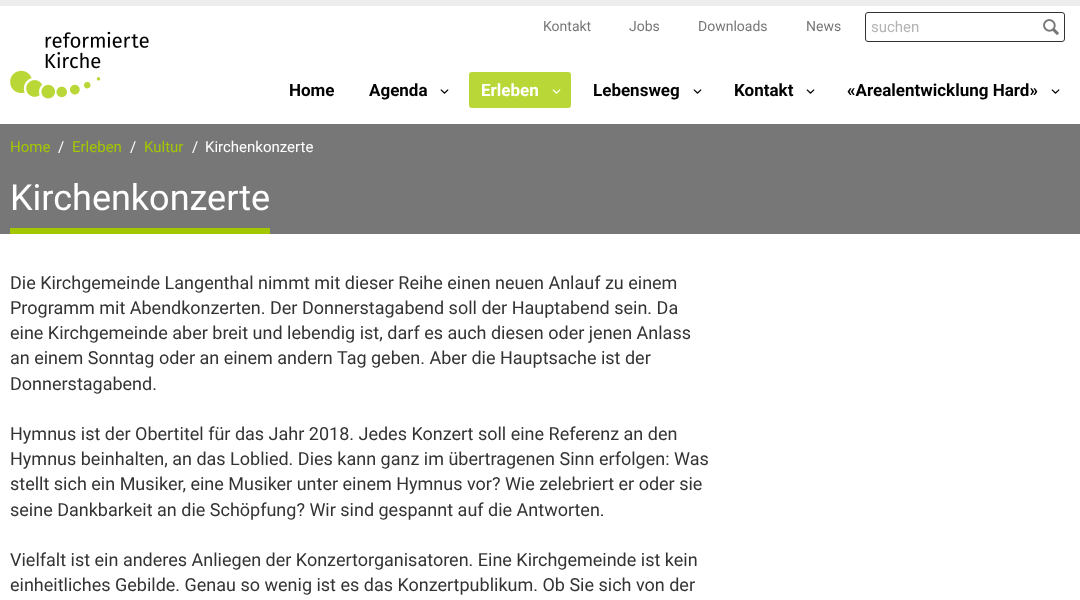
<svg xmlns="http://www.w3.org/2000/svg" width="1080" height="600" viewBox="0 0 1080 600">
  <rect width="100%" height="100%" fill="#ffffff"/>
  <rect x="0" y="0" width="1080" height="6" fill="#ededed"/>
  <image x="10" y="31" width="139" height="68" href="img1.png"/>
  <text x="543" y="31" font-family="Roboto" font-size="14" fill="#777777">Kontakt</text>
  <text x="629" y="31" font-family="Roboto" font-size="14" fill="#777777">Jobs</text>
  <text x="698" y="31" font-family="Roboto" font-size="14" fill="#777777">Downloads</text>
  <text x="806" y="31" font-family="Roboto" font-size="14" fill="#777777">News</text>
  <rect x="865.5" y="12.5" width="199" height="29" rx="2.5" fill="none" stroke="#333333"/>
  <text x="871" y="32" font-family="Roboto" font-size="15" fill="#b3b3b3">suchen</text>
  <image x="1043" y="19" width="16" height="16" href="img2.png"/>
  <text x="289" y="96" font-family="Roboto" font-size="17" font-weight="bold" fill="#000000">Home</text>
  <text x="369" y="96" font-family="Roboto" font-size="17" font-weight="bold" fill="#000000">Agenda</text>
  <image x="440" y="89" width="9" height="5" href="img3.png"/>
  <rect x="469" y="72" width="102" height="36" rx="3" fill="#b9d737"/>
  <text x="481" y="96" font-family="Roboto" font-size="17" font-weight="bold" fill="#ffffff">Erleben</text>
  <image x="552" y="89" width="9" height="5" href="img4.png"/>
  <text x="593" y="96" font-family="Roboto" font-size="17" font-weight="bold" fill="#000000">Lebensweg</text>
  <image x="693" y="89" width="9" height="5" href="img3.png"/>
  <text x="734" y="96" font-family="Roboto" font-size="17" font-weight="bold" fill="#000000">Kontakt</text>
  <image x="806" y="89" width="9" height="5" href="img3.png"/>
  <text x="847" y="96" font-family="Roboto" font-size="17" font-weight="bold" fill="#000000">«Arealentwicklung Hard»</text>
  <image x="1051" y="89" width="9" height="5" href="img3.png"/>
  <rect x="0" y="124" width="1080" height="110" fill="#777777"/>
  <text x="10" y="152" font-family="Roboto" font-size="15" fill="#a2c700">Home</text>
  <text x="58" y="152" font-family="Roboto" font-size="15" fill="#ffffff">/</text>
  <text x="72" y="152" font-family="Roboto" font-size="15" fill="#a2c700">Erleben</text>
  <text x="130" y="152" font-family="Roboto" font-size="15" fill="#ffffff">/</text>
  <text x="144" y="152" font-family="Roboto" font-size="15" fill="#a2c700">Kultur</text>
  <text x="192" y="152" font-family="Roboto" font-size="15" fill="#ffffff">/</text>
  <text x="205" y="152" font-family="Roboto" font-size="15" fill="#ffffff">Kirchenkonzerte</text>
  <rect x="10" y="228" width="260" height="6" fill="#a2c700"/>
  <text x="10" y="210" font-family="Roboto" font-size="36" fill="#ffffff">Kirchenkonzerte</text>
  <text x="10" y="289" font-family="Roboto" font-size="18" fill="#333333">Die Kirchgemeinde Langenthal nimmt mit dieser Reihe einen neuen Anlauf zu einem</text>
  <text x="10" y="314" font-family="Roboto" font-size="18" fill="#333333">Programm mit Abendkonzerten. Der Donnerstagabend soll der Hauptabend sein. Da</text>
  <text x="10" y="339" font-family="Roboto" font-size="18" fill="#333333">eine Kirchgemeinde aber breit und lebendig ist, darf es auch diesen oder jenen Anlass</text>
  <text x="10" y="364" font-family="Roboto" font-size="18" fill="#333333">an einem Sonntag oder an einem andern Tag geben. Aber die Hauptsache ist der</text>
  <text x="10" y="390" font-family="Roboto" font-size="18" fill="#333333">Donnerstagabend.</text>
  <text x="10" y="440" font-family="Roboto" font-size="18" fill="#333333">Hymnus ist der Obertitel für das Jahr 2018. Jedes Konzert soll eine Referenz an den</text>
  <text x="10" y="465" font-family="Roboto" font-size="18" fill="#333333">Hymnus beinhalten, an das Loblied. Dies kann ganz im übertragenen Sinn erfolgen: Was</text>
  <text x="10" y="490" font-family="Roboto" font-size="18" fill="#333333">stellt sich ein Musiker, eine Musiker unter einem Hymnus vor? Wie zelebriert er oder sie</text>
  <text x="10" y="516" font-family="Roboto" font-size="18" fill="#333333">seine Dankbarkeit an die Schöpfung? Wir sind gespannt auf die Antworten.</text>
  <text x="10" y="566" font-family="Roboto" font-size="18" fill="#333333">Vielfalt ist ein anderes Anliegen der Konzertorganisatoren. Eine Kirchgemeinde ist kein</text>
  <text x="10" y="591" font-family="Roboto" font-size="18" fill="#333333">einheitliches Gebilde. Genau so wenig ist es das Konzertpublikum. Ob Sie sich von der</text>
</svg>
